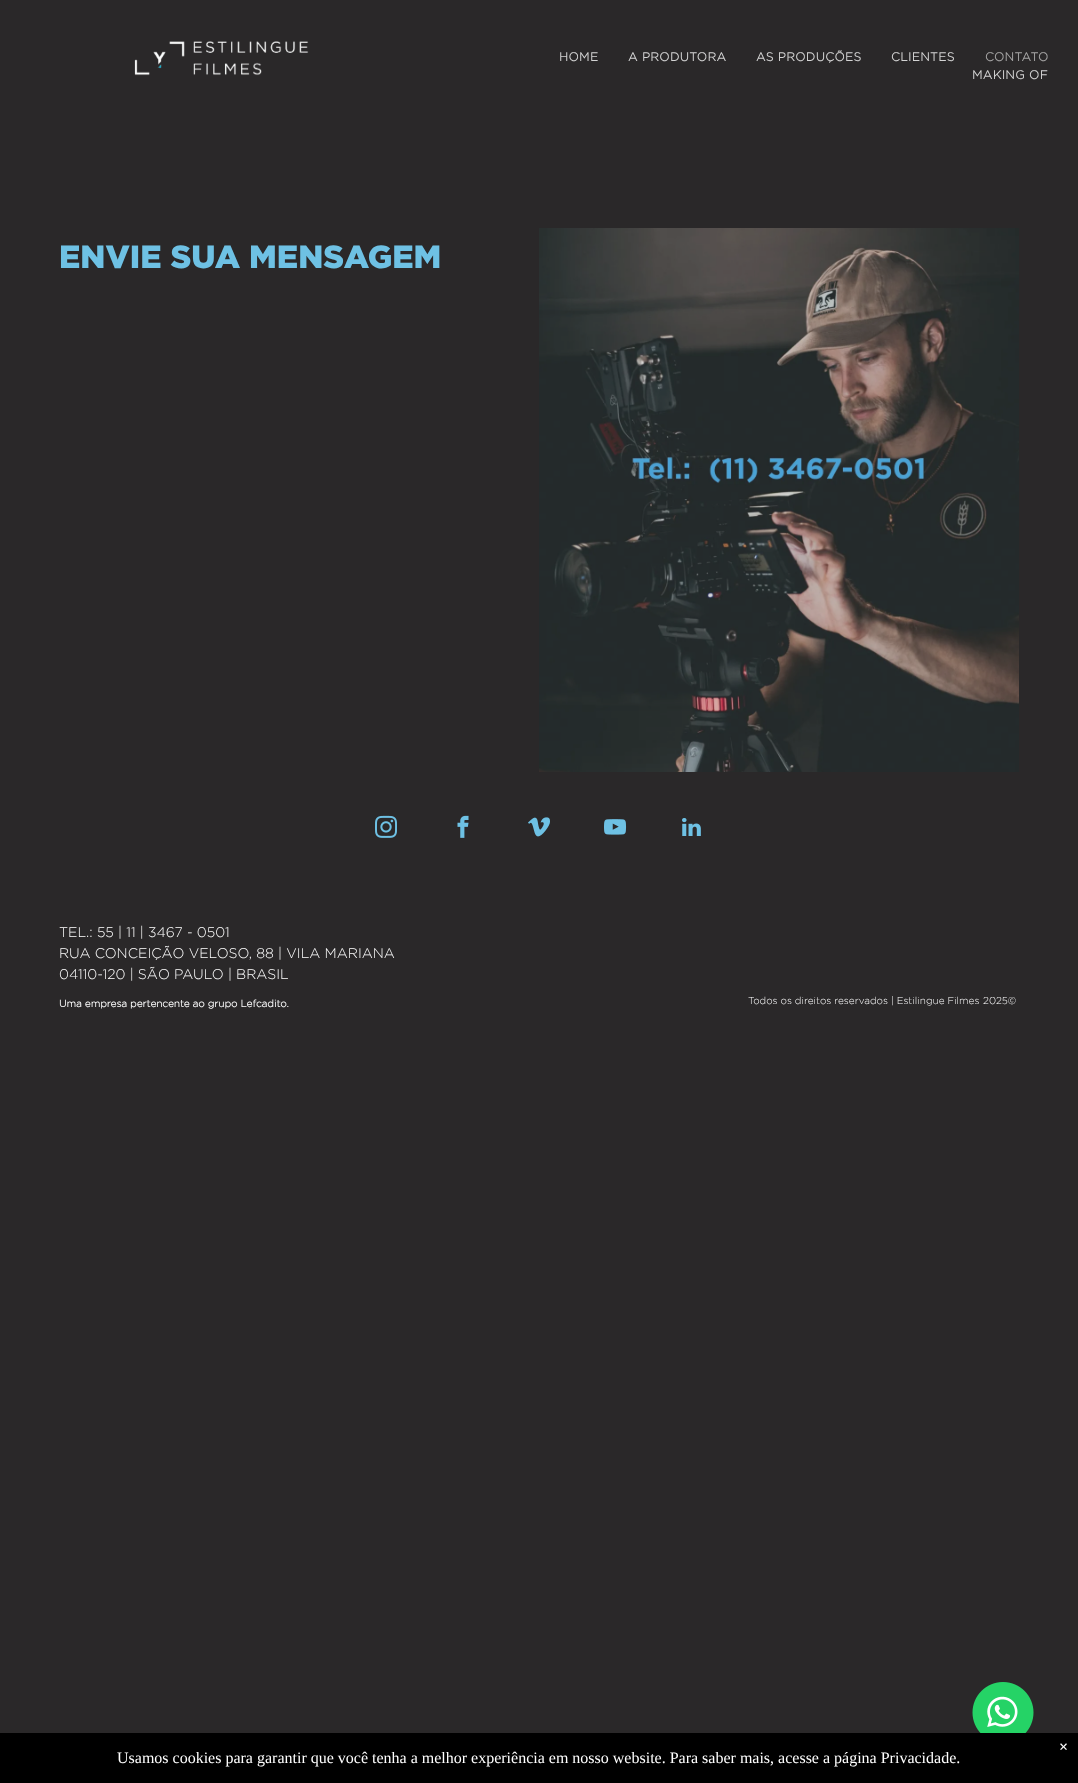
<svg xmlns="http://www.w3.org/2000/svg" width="1078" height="1783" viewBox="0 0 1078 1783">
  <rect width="100%" height="100%" fill="#2a2829"/>
  <image x="134" y="41" width="175" height="35" href="img1.png"/>
  <text x="559" y="61" font-family="Gotham" font-size="12" font-weight="bold" letter-spacing="0.4" fill="#d4d4d4">HOME</text>
  <text x="628" y="61" font-family="Gotham" font-size="12" font-weight="bold" letter-spacing="0.4" fill="#d4d4d4">A PRODUTORA</text>
  <text x="756" y="61" font-family="Gotham" font-size="12" font-weight="bold" letter-spacing="0.4" fill="#d4d4d4">AS PRODUÇÕES</text>
  <text x="891" y="61" font-family="Gotham" font-size="12" font-weight="bold" letter-spacing="0.4" fill="#d4d4d4">CLIENTES</text>
  <text x="985" y="61" font-family="Gotham" font-size="12" font-weight="bold" letter-spacing="0.4" fill="#a6a5a5">CONTATO</text>
  <text x="972" y="79" font-family="Gotham" font-size="12" font-weight="bold" letter-spacing="0.4" fill="#d4d4d4">MAKING OF</text>
  <text x="59" y="268" font-family="Gotham" font-size="32" font-weight="900" fill="#6ec1e4">ENVIE SUA MENSAGEM</text>
  <image x="539" y="228" width="480" height="544" href="img2.png"/>
  <image x="375" y="815" width="22" height="23" href="img3.png"/>
  <image x="457" y="815" width="12" height="23" href="img4.png"/>
  <image x="528" y="817" width="22" height="20" href="img5.png"/>
  <image x="604" y="819" width="23" height="16" href="img6.png"/>
  <image x="682" y="818" width="19" height="18" href="img7.png"/>
  <text x="59" y="937" font-family="Gotham" font-size="14" font-weight="300" fill="#ffffff">TEL.: 55 | 11 | 3467 - 0501</text>
  <text x="59" y="958" font-family="Gotham" font-size="14" font-weight="300" fill="#ffffff">RUA CONCEIÇÃO VELOSO, 88 | VILA MARIANA</text>
  <text x="59" y="979" font-family="Gotham" font-size="14" font-weight="300" fill="#ffffff">04110-120 | SÃO PAULO | BRASIL</text>
  <text x="59" y="1007" font-family="Gotham" font-size="10" font-weight="bold" fill="#ffffff">Uma empresa pertencente ao grupo Lefcadito.</text>
  <text x="748" y="1004" font-family="Gotham" font-size="10" font-weight="300" fill="#ffffff">Todos os direitos reservados | Estilingue Filmes</text>
  <text x="983" y="1004" font-family="Gotham" font-size="10" font-weight="300" fill="#ffffff">2025©</text>
  <image x="972" y="1682" width="62" height="51" href="img8.png"/>
  <rect x="0" y="1733" width="1078" height="50" fill="#000000"/>
  <text x="1059" y="1752" font-family="Liberation Serif" font-size="16" font-weight="bold" fill="#ffffff">×</text>
  <text x="117" y="1763" font-family="Liberation Serif" font-size="16" fill="#ffffff">Usamos cookies para garantir que você tenha a melhor experiência em nosso website. Para saber mais, acesse a página Privacidade.</text>
</svg>
